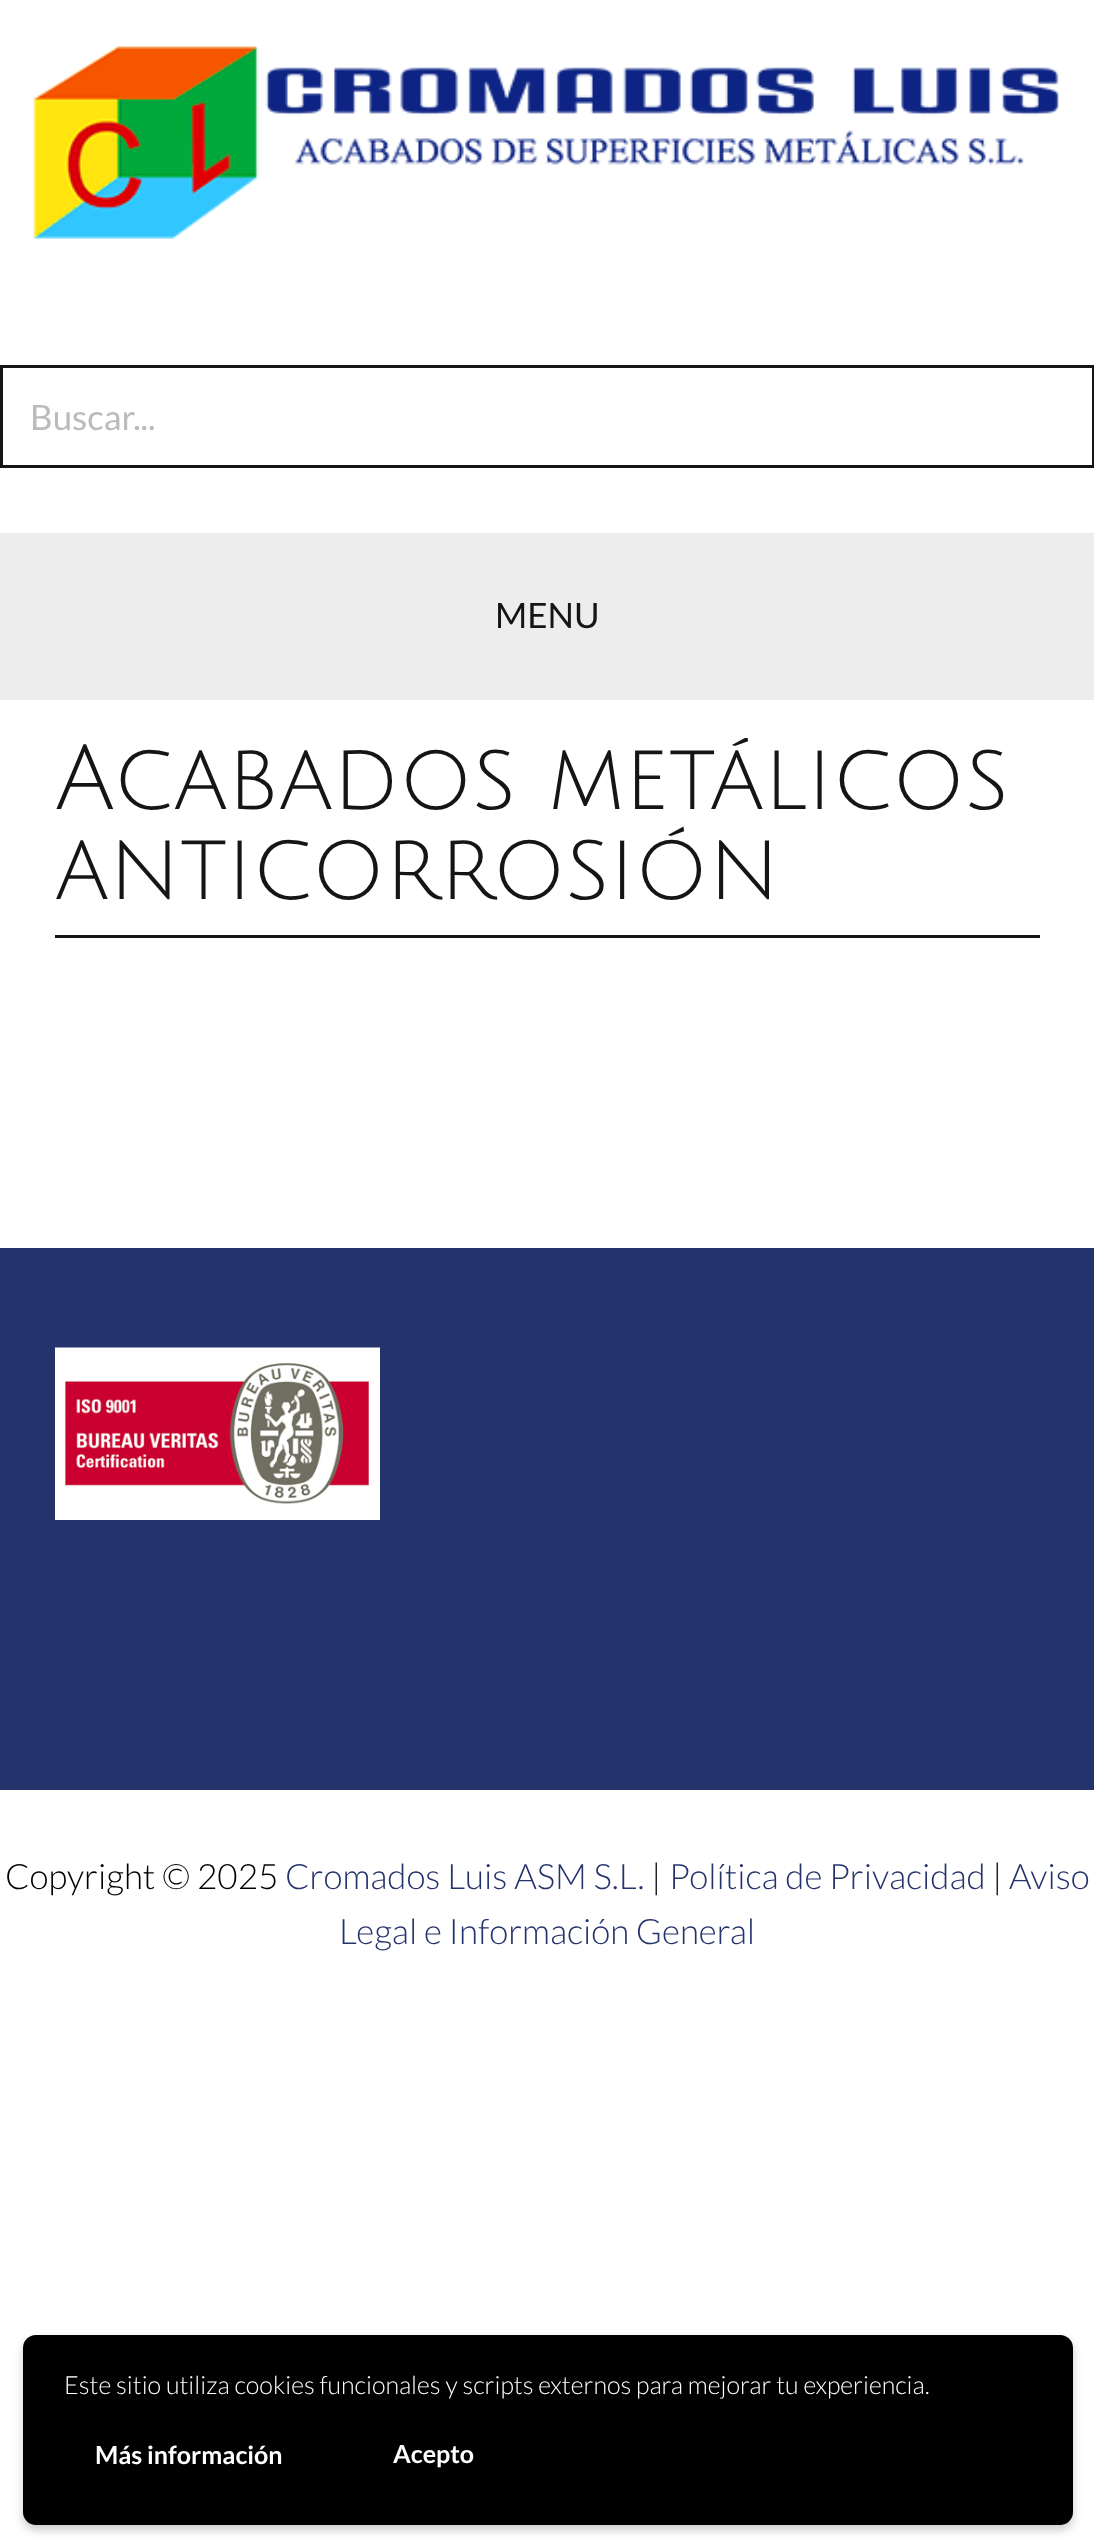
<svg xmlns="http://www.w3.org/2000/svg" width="1094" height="2546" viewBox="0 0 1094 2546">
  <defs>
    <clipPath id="clip1"><rect x="0" y="738" width="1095" height="435"/></clipPath>
    <filter id="blur1" x="-50%" y="-200%" width="200%" height="500%"><feGaussianBlur stdDeviation="5"/></filter>
  </defs>
  <rect width="100%" height="100%" fill="#ffffff"/>
  <image x="32" y="46" width="1027" height="193" href="img1.png"/>
  <rect x="1.5" y="366.5" width="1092" height="100" fill="none" stroke="#151515" stroke-width="3"/>
  <text x="30" y="430" font-family="Lato" font-size="35" fill="#bbbbbb">Buscar...</text>
  <rect x="0" y="533" width="1094" height="167" fill="#ededed"/>
  <text x="495" y="628" font-family="Lato" font-size="35" fill="#151515">MENU</text>
  <rect x="55" y="935" width="985" height="3" fill="#151515"/>
  <g clip-path="url(#clip1)">
    <text x="55" y="809" font-family="Julius Sans One" font-size="90" fill="#151515">Acabados metálicos</text>
  </g>
  <text x="55" y="899" font-family="Julius Sans One" font-size="90" fill="#151515">anticorrosión</text>
  <rect x="0" y="1248" width="1094" height="542" fill="#25336d"/>
  <image x="55" y="1347" width="325" height="173" href="img2.png"/>
  <text x="5" y="1889" font-family="Lato" font-size="35" font-weight="300" fill="#000000">Copyright © 2025</text>
  <text x="285" y="1889" font-family="Lato" font-size="35" font-weight="300" fill="#25336d">Cromados Luis ASM S.L.</text>
  <text x="651" y="1889" font-family="Lato" font-size="35" font-weight="300" fill="#000000">|</text>
  <text x="669" y="1889" font-family="Lato" font-size="35" font-weight="300" fill="#25336d">Política de Privacidad</text>
  <text x="992" y="1889" font-family="Lato" font-size="35" font-weight="300" fill="#000000">|</text>
  <text x="1009" y="1889" font-family="Lato" font-size="35" font-weight="300" fill="#25336d">Aviso</text>
  <text x="339" y="1944" font-family="Lato" font-size="35" font-weight="300" fill="#25336d">Legal e Información General</text>
  <rect x="23" y="2340" width="1050" height="190" rx="13" fill="#000000" fill-opacity="0.2" filter="url(#blur1)"/>
  <rect x="23" y="2335" width="1050" height="190" rx="13" fill="#000000"/>
  <text x="64" y="2394" font-family="Lato" font-size="25" font-weight="300" fill="#ffffff">Este sitio utiliza cookies funcionales y scripts externos para mejorar tu experiencia.</text>
  <text x="95" y="2464" font-family="Lato" font-size="25" font-weight="bold" fill="#ffffff">Más información</text>
  <text x="393" y="2463" font-family="Lato" font-size="25" font-weight="bold" fill="#ffffff">Acepto</text>
</svg>
